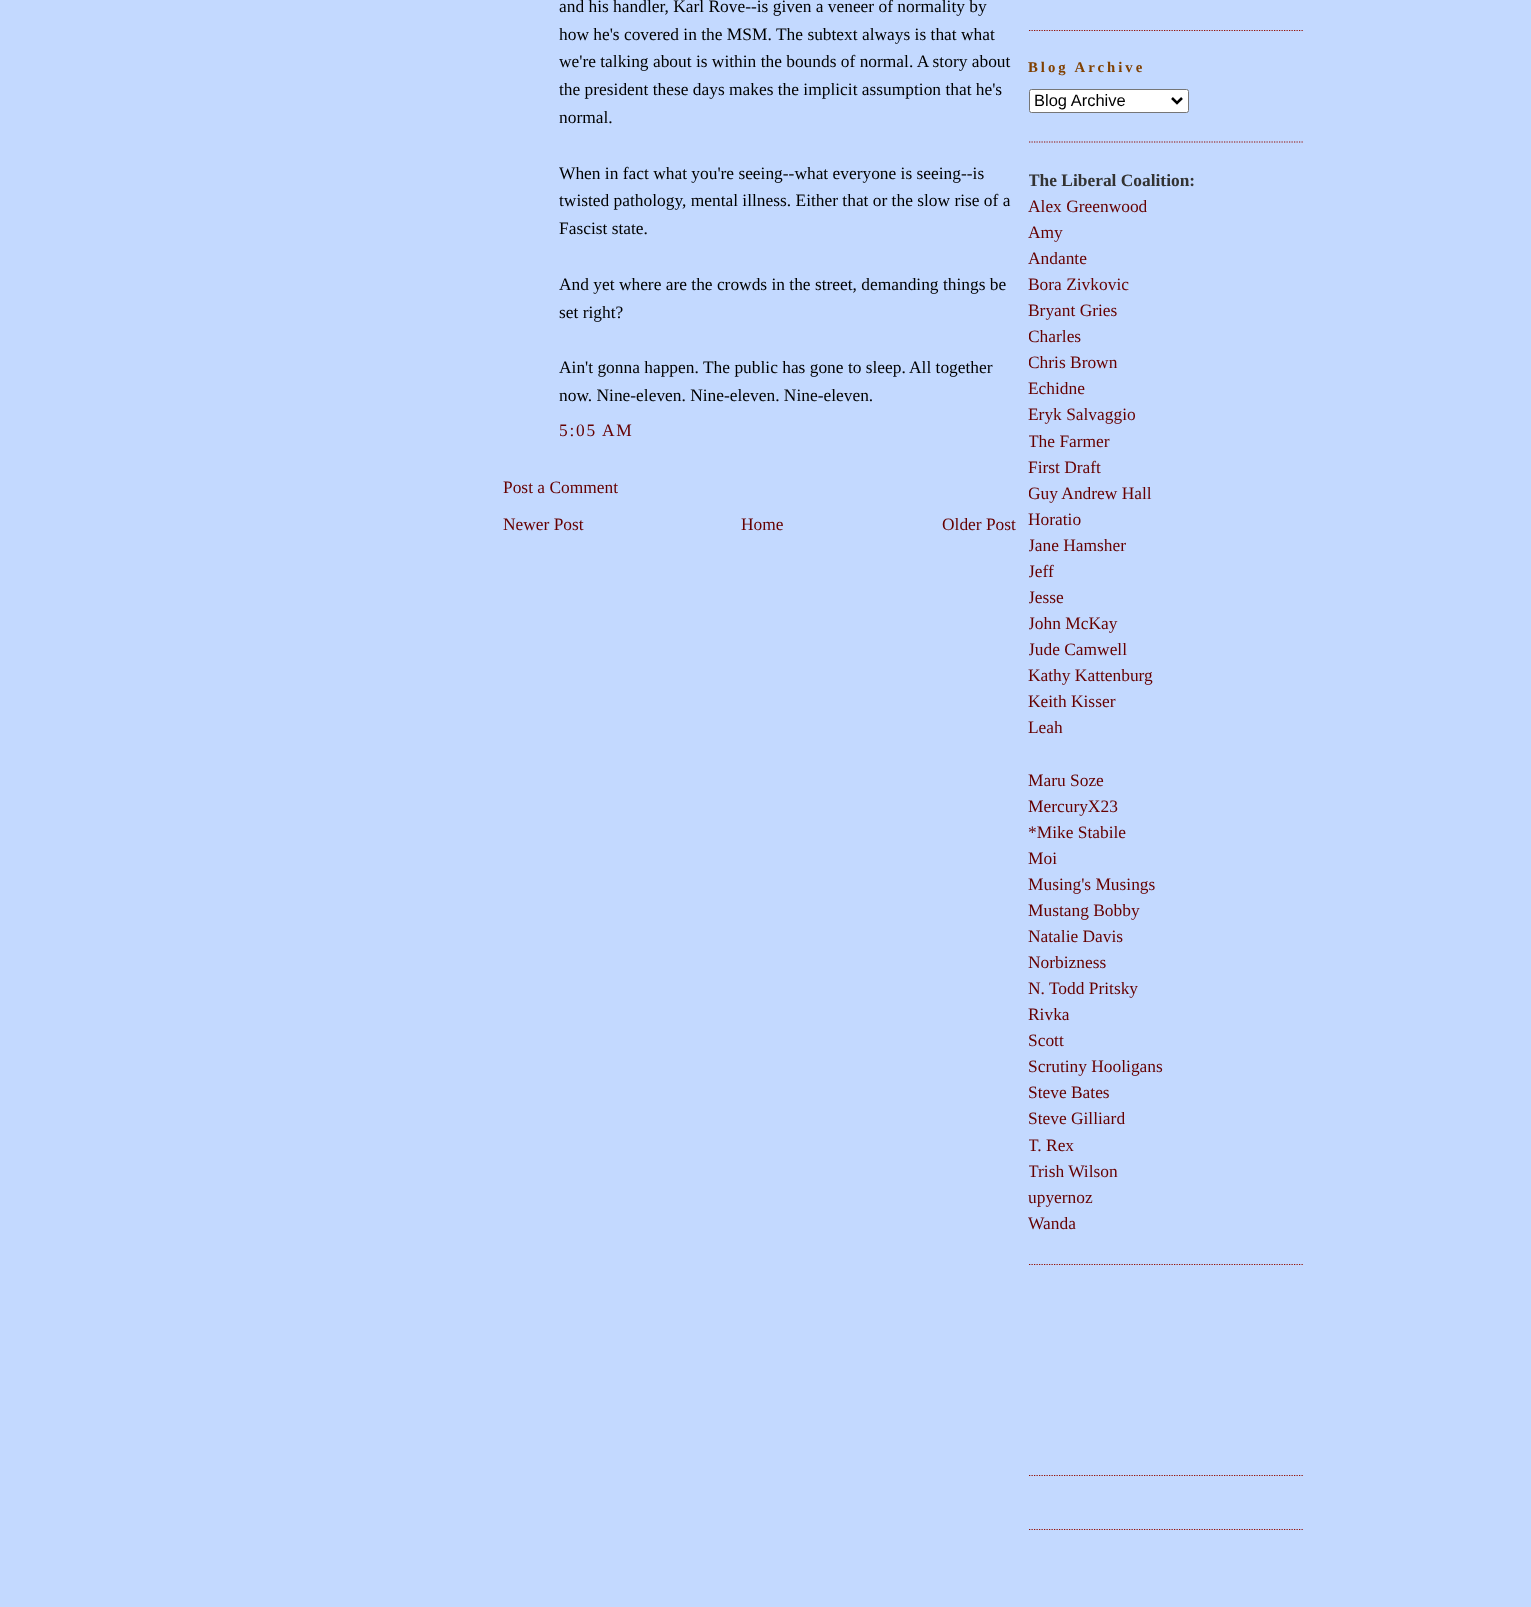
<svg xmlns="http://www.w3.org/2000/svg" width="1531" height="1607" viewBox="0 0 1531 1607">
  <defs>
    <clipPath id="clip1"><rect x="1029" y="0" width="275" height="1556"/></clipPath>
  </defs>
  <rect width="100%" height="100%" fill="#c3d9ff"/>
  <text x="559" y="12" font-family="Liberation Serif" font-size="17.4" fill="#000000">and his handler, Karl Rove--is given a veneer of normality by</text>
  <text x="559" y="40" font-family="Liberation Serif" font-size="17.4" fill="#000000">how he's covered in the MSM.</text>
  <text x="776" y="40" font-family="Liberation Serif" font-size="17.4" fill="#000000">The subtext always is that what</text>
  <text x="559" y="67" font-family="Liberation Serif" font-size="17.4" fill="#000000">we're talking about is within the bounds of normal. A story about</text>
  <text x="559" y="95" font-family="Liberation Serif" font-size="17.4" fill="#000000">the president these days makes the implicit assumption that he's</text>
  <text x="559" y="123" font-family="Liberation Serif" font-size="17.4" fill="#000000">normal.</text>
  <text x="559" y="179" font-family="Liberation Serif" font-size="17.4" fill="#000000">When in fact what you're seeing--what everyone is seeing--is</text>
  <text x="559" y="206" font-family="Liberation Serif" font-size="17.4" fill="#000000">twisted pathology, mental illness. Either that or the slow rise of a</text>
  <text x="559" y="234" font-family="Liberation Serif" font-size="17.4" fill="#000000">Fascist state.</text>
  <text x="559" y="290" font-family="Liberation Serif" font-size="17.4" fill="#000000">And yet where are the crowds in the street, demanding things be</text>
  <text x="559" y="318" font-family="Liberation Serif" font-size="17.4" fill="#000000">set right?</text>
  <text x="559" y="373" font-family="Liberation Serif" font-size="17.4" fill="#000000">Ain't gonna happen.</text>
  <text x="703" y="373" font-family="Liberation Serif" font-size="17.4" fill="#000000">The public has gone to sleep.</text>
  <text x="909" y="373" font-family="Liberation Serif" font-size="17.4" fill="#000000">All together</text>
  <text x="559" y="401" font-family="Liberation Serif" font-size="17.4" fill="#000000">now. Nine-eleven. Nine-eleven. Nine-eleven.</text>
  <text x="559" y="436" font-family="Liberation Serif" font-size="17.4" letter-spacing="1.75" fill="#660000">5:05 AM</text>
  <text x="503" y="493" font-family="Liberation Serif" font-size="17.4" fill="#660000">Post a Comment</text>
  <text x="503" y="530" font-family="Liberation Serif" font-size="17.4" fill="#660000">Newer Post</text>
  <text x="741" y="530" font-family="Liberation Serif" font-size="17.4" fill="#660000">Home</text>
  <text x="942" y="530" font-family="Liberation Serif" font-size="17.4" fill="#660000">Older Post</text>
  <path d="M1029 30.5H1304" fill="none" stroke="#940f04" stroke-width="1.2" stroke-dasharray="1.25 1.25"/>
  <path d="M1029 142H1304" fill="none" stroke="#940f04" stroke-width="1.2" stroke-dasharray="1.25 1.25"/>
  <text x="1028" y="72" font-family="Liberation Serif" font-size="14.75" font-weight="bold" letter-spacing="3" fill="#804000">Blog Archive</text>
  <rect x="1029.5" y="89.5" width="159" height="23" rx="2" fill="#ffffff" stroke="#767676"/>
  <path d="M1172 98L1177 103L1182 98" fill="none" stroke="#000000" stroke-width="2.5"/>
  <text x="1034" y="106" font-family="Liberation Sans" font-size="16.5" fill="#000000">Blog Archive</text>
  <path d="M1029 1264.5H1304" fill="none" stroke="#940f04" stroke-width="1.2" stroke-dasharray="1.25 1.25"/>
  <g clip-path="url(#clip1)">
    <text x="1028" y="186" font-family="Liberation Serif" font-size="17.4" font-weight="bold" fill="#333333">The Liberal Coalition:</text>
  </g>
  <text x="1028" y="212" font-family="Liberation Serif" font-size="17.4" fill="#660000">Alex Greenwood</text>
  <text x="1028" y="238" font-family="Liberation Serif" font-size="17.4" fill="#660000">Amy</text>
  <text x="1028" y="264" font-family="Liberation Serif" font-size="17.4" fill="#660000">Andante</text>
  <text x="1028" y="290" font-family="Liberation Serif" font-size="17.4" fill="#660000">Bora Zivkovic</text>
  <text x="1028" y="316" font-family="Liberation Serif" font-size="17.4" fill="#660000">Bryant Gries</text>
  <g clip-path="url(#clip1)">
    <text x="1028" y="342" font-family="Liberation Serif" font-size="17.4" fill="#660000">Charles</text>
    <text x="1028" y="368" font-family="Liberation Serif" font-size="17.4" fill="#660000">Chris Brown</text>
  </g>
  <text x="1028" y="394" font-family="Liberation Serif" font-size="17.4" fill="#660000">Echidne</text>
  <text x="1028" y="420" font-family="Liberation Serif" font-size="17.4" fill="#660000">Eryk Salvaggio</text>
  <g clip-path="url(#clip1)">
    <text x="1028" y="447" font-family="Liberation Serif" font-size="17.4" fill="#660000">The Farmer</text>
  </g>
  <text x="1028" y="473" font-family="Liberation Serif" font-size="17.4" fill="#660000">First Draft</text>
  <g clip-path="url(#clip1)">
    <text x="1028" y="499" font-family="Liberation Serif" font-size="17.4" fill="#660000">Guy Andrew Hall</text>
  </g>
  <text x="1028" y="525" font-family="Liberation Serif" font-size="17.4" fill="#660000">Horatio</text>
  <g clip-path="url(#clip1)">
    <text x="1028" y="551" font-family="Liberation Serif" font-size="17.4" fill="#660000">Jane Hamsher</text>
    <text x="1028" y="577" font-family="Liberation Serif" font-size="17.4" fill="#660000">Jeff</text>
    <text x="1028" y="603" font-family="Liberation Serif" font-size="17.4" fill="#660000">Jesse</text>
    <text x="1028" y="629" font-family="Liberation Serif" font-size="17.4" fill="#660000">John McKay</text>
    <text x="1028" y="655" font-family="Liberation Serif" font-size="17.4" fill="#660000">Jude Camwell</text>
  </g>
  <text x="1028" y="681" font-family="Liberation Serif" font-size="17.4" fill="#660000">Kathy Kattenburg</text>
  <text x="1028" y="707" font-family="Liberation Serif" font-size="17.4" fill="#660000">Keith Kisser</text>
  <text x="1028" y="733" font-family="Liberation Serif" font-size="17.4" fill="#660000">Leah</text>
  <text x="1028" y="786" font-family="Liberation Serif" font-size="17.4" fill="#660000">Maru Soze</text>
  <text x="1028" y="812" font-family="Liberation Serif" font-size="17.4" fill="#660000">MercuryX23</text>
  <text x="1028" y="838" font-family="Liberation Serif" font-size="17.4" fill="#660000">*Mike Stabile</text>
  <text x="1028" y="864" font-family="Liberation Serif" font-size="17.4" fill="#660000">Moi</text>
  <text x="1028" y="890" font-family="Liberation Serif" font-size="17.4" fill="#660000">Musing's Musings</text>
  <text x="1028" y="916" font-family="Liberation Serif" font-size="17.4" fill="#660000">Mustang Bobby</text>
  <text x="1028" y="942" font-family="Liberation Serif" font-size="17.4" fill="#660000">Natalie Davis</text>
  <text x="1028" y="968" font-family="Liberation Serif" font-size="17.4" fill="#660000">Norbizness</text>
  <text x="1028" y="994" font-family="Liberation Serif" font-size="17.4" fill="#660000">N. Todd Pritsky</text>
  <text x="1028" y="1020" font-family="Liberation Serif" font-size="17.4" fill="#660000">Rivka</text>
  <text x="1028" y="1046" font-family="Liberation Serif" font-size="17.4" fill="#660000">Scott</text>
  <text x="1028" y="1072" font-family="Liberation Serif" font-size="17.4" fill="#660000">Scrutiny Hooligans</text>
  <text x="1028" y="1098" font-family="Liberation Serif" font-size="17.4" fill="#660000">Steve Bates</text>
  <text x="1028" y="1124" font-family="Liberation Serif" font-size="17.4" fill="#660000">Steve Gilliard</text>
  <g clip-path="url(#clip1)">
    <text x="1028" y="1151" font-family="Liberation Serif" font-size="17.4" fill="#660000">T. Rex</text>
    <text x="1028" y="1177" font-family="Liberation Serif" font-size="17.4" fill="#660000">Trish Wilson</text>
  </g>
  <text x="1028" y="1203" font-family="Liberation Serif" font-size="17.4" fill="#660000">upyernoz</text>
  <text x="1028" y="1229" font-family="Liberation Serif" font-size="17.4" fill="#660000">Wanda</text>
  <path d="M1029 1475.5H1304" fill="none" stroke="#940f04" stroke-width="1.2" stroke-dasharray="1.25 1.25"/>
  <path d="M1029 1529.5H1304" fill="none" stroke="#940f04" stroke-width="1.2" stroke-dasharray="1.25 1.25"/>
</svg>
